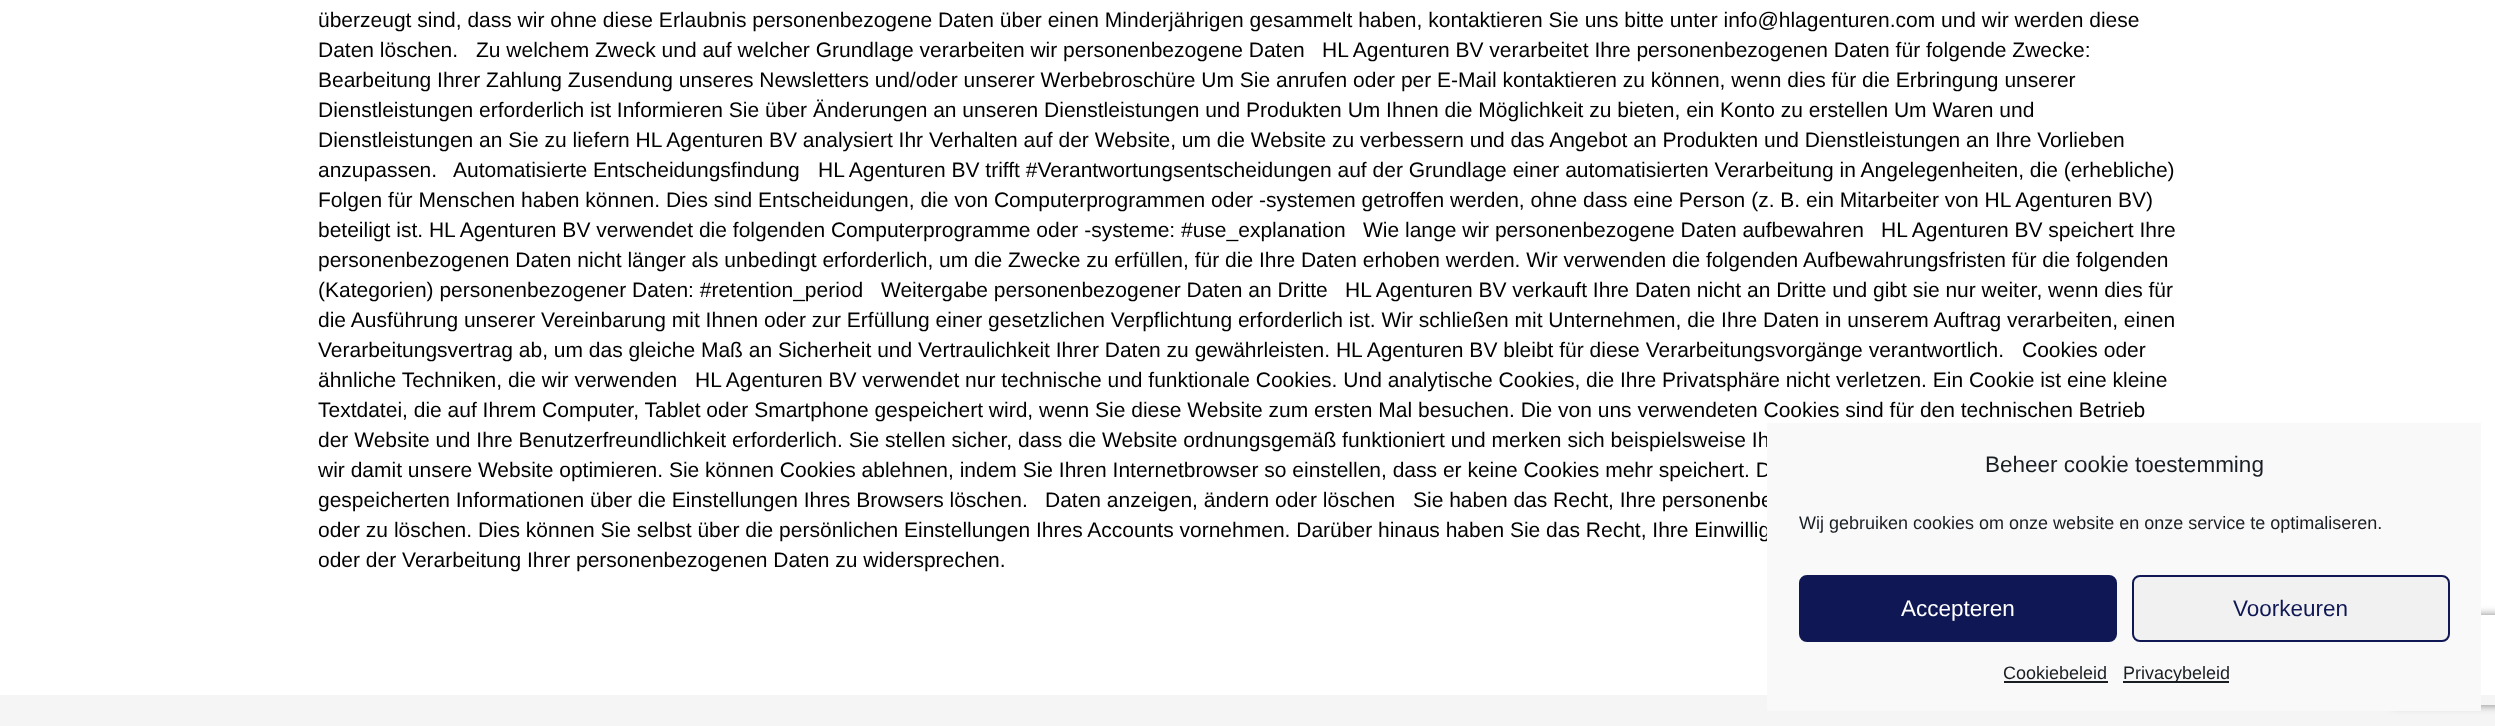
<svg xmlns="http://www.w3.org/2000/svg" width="2495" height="726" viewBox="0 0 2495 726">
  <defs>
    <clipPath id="clip1"><path d="M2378 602H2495V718H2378ZM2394 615H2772C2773.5 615 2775 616.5 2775 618V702C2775 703.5 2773.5 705 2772 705H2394C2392.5 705 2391 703.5 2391 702V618C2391 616.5 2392.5 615 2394 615Z" clip-rule="evenodd"/></clipPath>
    <filter id="blur1" x="-50%" y="-200%" width="200%" height="500%"><feGaussianBlur stdDeviation="4"/></filter>
  </defs>
  <rect width="100%" height="100%" fill="#ffffff"/>
  <text x="318" y="27" font-family="Liberation Sans" font-size="21" fill="#000000">überzeugt sind, dass wir ohne diese Erlaubnis personenbezogene Daten über einen Minderjährigen gesammelt haben, kontaktieren Sie uns bitte unter info@hlagenturen.com und wir werden diese</text>
  <text x="318" y="57" font-family="Liberation Sans" font-size="21" fill="#000000">Daten löschen.</text>
  <text x="476" y="57" font-family="Liberation Sans" font-size="21" fill="#000000">Zu welchem Zweck und auf welcher Grundlage verarbeiten wir personenbezogene Daten</text>
  <text x="1322" y="57" font-family="Liberation Sans" font-size="21" fill="#000000">HL Agenturen BV verarbeitet Ihre personenbezogenen Daten für folgende Zwecke:</text>
  <text x="318" y="87" font-family="Liberation Sans" font-size="21" fill="#000000">Bearbeitung Ihrer Zahlung Zusendung unseres Newsletters und/oder unserer Werbebroschüre Um Sie anrufen oder per E-Mail kontaktieren zu können, wenn dies für die Erbringung unserer</text>
  <text x="318" y="117" font-family="Liberation Sans" font-size="21" fill="#000000">Dienstleistungen erforderlich ist Informieren Sie über Änderungen an unseren Dienstleistungen und Produkten Um Ihnen die Möglichkeit zu bieten, ein Konto zu erstellen Um Waren und</text>
  <text x="318" y="147" font-family="Liberation Sans" font-size="21" fill="#000000">Dienstleistungen an Sie zu liefern HL Agenturen BV analysiert Ihr Verhalten auf der Website, um die Website zu verbessern und das Angebot an Produkten und Dienstleistungen an Ihre Vorlieben</text>
  <text x="318" y="177" font-family="Liberation Sans" font-size="21" fill="#000000">anzupassen.</text>
  <text x="453" y="177" font-family="Liberation Sans" font-size="21" fill="#000000">Automatisierte Entscheidungsfindung</text>
  <text x="818" y="177" font-family="Liberation Sans" font-size="21" fill="#000000">HL Agenturen BV trifft #Verantwortungsentscheidungen auf der Grundlage einer automatisierten Verarbeitung in Angelegenheiten, die (erhebliche)</text>
  <text x="318" y="207" font-family="Liberation Sans" font-size="21" fill="#000000">Folgen für Menschen haben können. Dies sind Entscheidungen, die von Computerprogrammen oder -systemen getroffen werden, ohne dass eine Person (z. B. ein Mitarbeiter von HL Agenturen BV)</text>
  <text x="318" y="237" font-family="Liberation Sans" font-size="21" fill="#000000">beteiligt ist. HL Agenturen BV verwendet die folgenden Computerprogramme oder -systeme: #use_explanation</text>
  <text x="1363" y="237" font-family="Liberation Sans" font-size="21" fill="#000000">Wie lange wir personenbezogene Daten aufbewahren</text>
  <text x="1881" y="237" font-family="Liberation Sans" font-size="21" fill="#000000">HL Agenturen BV speichert Ihre</text>
  <text x="318" y="267" font-family="Liberation Sans" font-size="21" fill="#000000">personenbezogenen Daten nicht länger als unbedingt erforderlich, um die Zwecke zu erfüllen, für die Ihre Daten erhoben werden. Wir verwenden die folgenden Aufbewahrungsfristen für die folgenden</text>
  <text x="318" y="297" font-family="Liberation Sans" font-size="21" fill="#000000">(Kategorien) personenbezogener Daten: #retention_period</text>
  <text x="881" y="297" font-family="Liberation Sans" font-size="21" fill="#000000">Weitergabe personenbezogener Daten an Dritte</text>
  <text x="1345" y="297" font-family="Liberation Sans" font-size="21" fill="#000000">HL Agenturen BV verkauft Ihre Daten nicht an Dritte und gibt sie nur weiter, wenn dies für</text>
  <text x="318" y="327" font-family="Liberation Sans" font-size="21" fill="#000000">die Ausführung unserer Vereinbarung mit Ihnen oder zur Erfüllung einer gesetzlichen Verpflichtung erforderlich ist. Wir schließen mit Unternehmen, die Ihre Daten in unserem Auftrag verarbeiten, einen</text>
  <text x="318" y="357" font-family="Liberation Sans" font-size="21" fill="#000000">Verarbeitungsvertrag ab, um das gleiche Maß an Sicherheit und Vertraulichkeit Ihrer Daten zu gewährleisten. HL Agenturen BV bleibt für diese Verarbeitungsvorgänge verantwortlich.</text>
  <text x="2022" y="357" font-family="Liberation Sans" font-size="21" fill="#000000">Cookies oder</text>
  <text x="318" y="387" font-family="Liberation Sans" font-size="21" fill="#000000">ähnliche Techniken, die wir verwenden</text>
  <text x="695" y="387" font-family="Liberation Sans" font-size="21" fill="#000000">HL Agenturen BV verwendet nur technische und funktionale Cookies. Und analytische Cookies, die Ihre Privatsphäre nicht verletzen. Ein Cookie ist eine kleine</text>
  <text x="318" y="417" font-family="Liberation Sans" font-size="21" fill="#000000">Textdatei, die auf Ihrem Computer, Tablet oder Smartphone gespeichert wird, wenn Sie diese Website zum ersten Mal besuchen. Die von uns verwendeten Cookies sind für den technischen Betrieb</text>
  <text x="318" y="447" font-family="Liberation Sans" font-size="21" fill="#000000">der Website und Ihre Benutzerfreundlichkeit erforderlich. Sie stellen sicher, dass die Website ordnungsgemäß funktioniert und merken sich beispielsweise Ih</text>
  <text x="318" y="477" font-family="Liberation Sans" font-size="21" fill="#000000">wir damit unsere Website optimieren. Sie können Cookies ablehnen, indem Sie Ihren Internetbrowser so einstellen, dass er keine Cookies mehr speichert. D</text>
  <text x="318" y="507" font-family="Liberation Sans" font-size="21" fill="#000000">gespeicherten Informationen über die Einstellungen Ihres Browsers löschen.</text>
  <text x="1045" y="507" font-family="Liberation Sans" font-size="21" fill="#000000">Daten anzeigen, ändern oder löschen</text>
  <text x="1413" y="507" font-family="Liberation Sans" font-size="21" fill="#000000">Sie haben das Recht, Ihre personenbe</text>
  <text x="318" y="537" font-family="Liberation Sans" font-size="21" fill="#000000">oder zu löschen. Dies können Sie selbst über die persönlichen Einstellungen Ihres Accounts vornehmen. Darüber hinaus haben Sie das Recht, Ihre Einwillig</text>
  <text x="318" y="567" font-family="Liberation Sans" font-size="21" fill="#000000">oder der Verarbeitung Ihrer personenbezogenen Daten zu widersprechen.</text>
  <rect x="0" y="695" width="2495" height="31" fill="#f5f5f5"/>
  <g clip-path="url(#clip1)">
    <rect x="2391" y="615" width="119" height="90" rx="3" fill="#808080" filter="url(#blur1)"/>
  </g>
  <rect x="1767" y="423" width="714" height="288" fill="#f9f9f9"/>
  <text x="1985" y="472" font-family="Liberation Sans" font-size="22.5" fill="#191e23">Beheer cookie toestemming</text>
  <text x="1799" y="529" font-family="Liberation Sans" font-size="18" fill="#191e23">Wij gebruiken cookies om onze website en onze service te optimaliseren.</text>
  <rect x="1800" y="576" width="316" height="65" rx="7" fill="#0f1854" stroke="#0f1854" stroke-width="2"/>
  <text x="1901" y="616" font-family="Liberation Sans" font-size="22.5" fill="#ffffff">Accepteren</text>
  <rect x="2133" y="576" width="316" height="65" rx="7" fill="#f1f1f1" stroke="#0f1854" stroke-width="2"/>
  <text x="2233" y="616" font-family="Liberation Sans" font-size="22.5" fill="#0f1854">Voorkeuren</text>
  <text x="2003" y="679" font-family="Liberation Sans" font-size="18" fill="#191e23">Cookiebeleid</text>
  <rect x="2004" y="681" width="104" height="2" fill="#191e23"/>
  <rect x="2123" y="681" width="106" height="2" fill="#191e23"/>
  <text x="2123" y="679" font-family="Liberation Sans" font-size="18" fill="#191e23">Privacybeleid</text>
</svg>
